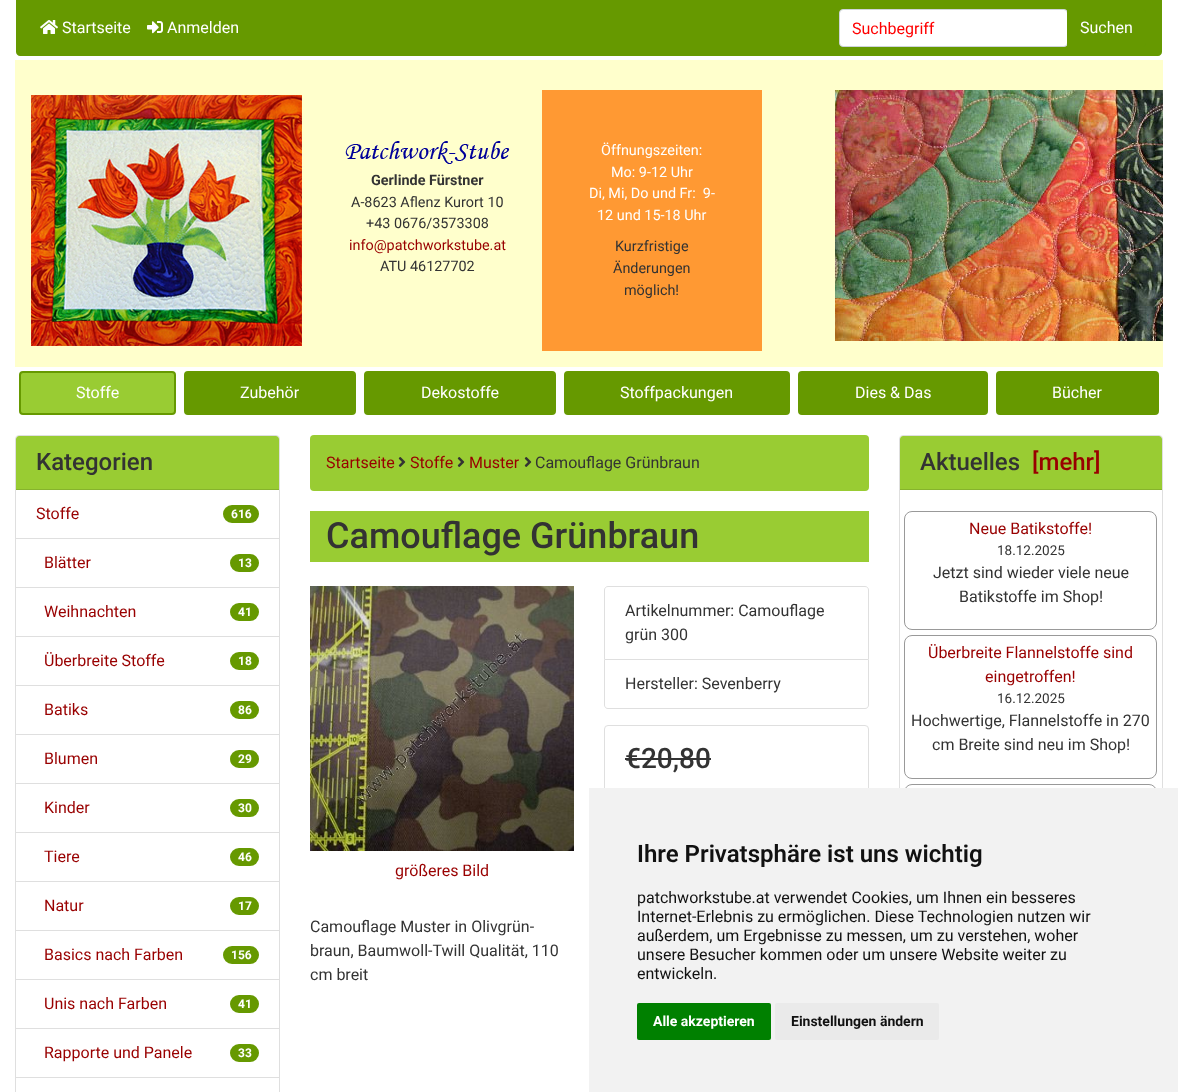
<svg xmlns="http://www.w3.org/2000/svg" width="1178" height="1092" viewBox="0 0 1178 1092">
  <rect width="100%" height="100%" fill="#ffffff"/>
  <path d="M16 0H1162V52C1162 54 1160 56 1158 56H20C18 56 16 54 16 52Z" fill="#669900"/>
  <image x="40" y="20" width="18" height="14" href="img1.png"/>
  <text x="62" y="33" font-family="Roboto" font-size="16" fill="#ffffff">Startseite</text>
  <image x="147" y="21" width="16" height="13" href="img2.png"/>
  <text x="167" y="33" font-family="Roboto" font-size="16" fill="#ffffff">Anmelden</text>
  <rect x="839.5" y="9.5" width="228" height="37" rx="3.5" fill="#ffffff" stroke="#ced4da"/>
  <text x="852" y="34" font-family="Roboto" font-size="16" fill="#ff0000">Suchbegriff</text>
  <path d="M1067 9H1142C1144 9 1146 11 1146 13V43C1146 45 1144 47 1142 47H1067Z" fill="#669900"/>
  <text x="1080" y="33" font-family="Roboto" font-size="16" fill="#ffffff">Suchen</text>
  <rect x="15" y="60" width="1148" height="307" fill="#ffffcc"/>
  <image x="835" y="90" width="328" height="251" href="img3.png"/>
  <image x="31" y="95" width="271" height="251" href="img4.png"/>
  <image x="345" y="141" width="165" height="23" href="img5.png"/>
  <text x="371" y="185" font-family="Roboto" font-size="14.4" font-weight="bold" fill="#333333">Gerlinde Fürstner</text>
  <text x="351" y="207" font-family="Roboto" font-size="14.4" fill="#333333">A-8623 Aflenz Kurort 10</text>
  <text x="366" y="228" font-family="Roboto" font-size="14.4" fill="#333333">+43 0676/3573308</text>
  <text x="349" y="250" font-family="Roboto" font-size="14.4" fill="#990000">info@patchworkstube.at</text>
  <text x="380" y="271" font-family="Roboto" font-size="14.4" fill="#333333">ATU 46127702</text>
  <rect x="542" y="90" width="220" height="261" fill="#ff9933"/>
  <text x="601" y="155" font-family="Roboto" font-size="14.4" fill="#ffffff">Öffnungszeiten:</text>
  <text x="611" y="177" font-family="Roboto" font-size="14.4" fill="#ffffff">Mo: 9-12 Uhr</text>
  <text x="589" y="198" font-family="Roboto" font-size="14.4" fill="#ffffff" xml:space="preserve">Di, Mi, Do und Fr:  9-</text>
  <text x="597" y="220" font-family="Roboto" font-size="14.4" fill="#ffffff">12 und 15-18 Uhr</text>
  <text x="615" y="251" font-family="Roboto" font-size="14.4" fill="#333333">Kurzfristige</text>
  <text x="613" y="273" font-family="Roboto" font-size="14.4" fill="#333333">Änderungen</text>
  <text x="624" y="295" font-family="Roboto" font-size="14.4" fill="#333333">möglich!</text>
  <rect x="20" y="372" width="155" height="42" rx="3" fill="#99cc33" stroke="#669900" stroke-width="2"/>
  <text x="76" y="398" font-family="Roboto" font-size="16" fill="#ffffff">Stoffe</text>
  <rect x="185" y="372" width="170" height="42" rx="3" fill="#669900" stroke="#669900" stroke-width="2"/>
  <text x="240" y="398" font-family="Roboto" font-size="16" fill="#ffffff">Zubehör</text>
  <rect x="365" y="372" width="190" height="42" rx="3" fill="#669900" stroke="#669900" stroke-width="2"/>
  <text x="421" y="398" font-family="Roboto" font-size="16" fill="#ffffff">Dekostoffe</text>
  <rect x="565" y="372" width="224" height="42" rx="3" fill="#669900" stroke="#669900" stroke-width="2"/>
  <text x="620" y="398" font-family="Roboto" font-size="16" fill="#ffffff">Stoffpackungen</text>
  <rect x="799" y="372" width="188" height="42" rx="3" fill="#669900" stroke="#669900" stroke-width="2"/>
  <text x="855" y="398" font-family="Roboto" font-size="16" fill="#ffffff">Dies &amp; Das</text>
  <rect x="997" y="372" width="161" height="42" rx="3" fill="#669900" stroke="#669900" stroke-width="2"/>
  <text x="1052" y="398" font-family="Roboto" font-size="16" fill="#ffffff">Bücher</text>
  <rect x="15.5" y="435.5" width="264" height="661" rx="3.5" fill="none" stroke="#dfdfdf"/>
  <path d="M19 436H276C277.5 436 279 437.5 279 439V490H16V439C16 437.5 17.5 436 19 436Z" fill="#99cc33"/>
  <rect x="16" y="489" width="263" height="1" fill="#86b32d"/>
  <text x="36" y="470" font-family="Roboto" font-size="24" font-weight="500" fill="#333333">Kategorien</text>
  <rect x="16" y="538" width="263" height="1" fill="#dfdfdf"/>
  <text x="36" y="519" font-family="Roboto" font-size="16" fill="#990000">Stoffe</text>
  <rect x="223" y="505" width="36" height="18" rx="9" fill="#669900"/>
  <text x="231" y="518" font-family="Roboto" font-size="12" font-weight="bold" fill="#ffffff">616</text>
  <rect x="16" y="587" width="263" height="1" fill="#dfdfdf"/>
  <text x="44" y="568" font-family="Roboto" font-size="16" fill="#990000">Blätter</text>
  <rect x="230" y="554" width="29" height="18" rx="9" fill="#669900"/>
  <text x="238" y="567" font-family="Roboto" font-size="12" font-weight="bold" fill="#ffffff">13</text>
  <rect x="16" y="636" width="263" height="1" fill="#dfdfdf"/>
  <text x="44" y="617" font-family="Roboto" font-size="16" fill="#990000">Weihnachten</text>
  <rect x="230" y="603" width="29" height="18" rx="9" fill="#669900"/>
  <text x="238" y="616" font-family="Roboto" font-size="12" font-weight="bold" fill="#ffffff">41</text>
  <rect x="16" y="685" width="263" height="1" fill="#dfdfdf"/>
  <text x="44" y="666" font-family="Roboto" font-size="16" fill="#990000">Überbreite Stoffe</text>
  <rect x="230" y="652" width="29" height="18" rx="9" fill="#669900"/>
  <text x="238" y="665" font-family="Roboto" font-size="12" font-weight="bold" fill="#ffffff">18</text>
  <rect x="16" y="734" width="263" height="1" fill="#dfdfdf"/>
  <text x="44" y="715" font-family="Roboto" font-size="16" fill="#990000">Batiks</text>
  <rect x="230" y="701" width="29" height="18" rx="9" fill="#669900"/>
  <text x="238" y="714" font-family="Roboto" font-size="12" font-weight="bold" fill="#ffffff">86</text>
  <rect x="16" y="783" width="263" height="1" fill="#dfdfdf"/>
  <text x="44" y="764" font-family="Roboto" font-size="16" fill="#990000">Blumen</text>
  <rect x="230" y="750" width="29" height="18" rx="9" fill="#669900"/>
  <text x="238" y="763" font-family="Roboto" font-size="12" font-weight="bold" fill="#ffffff">29</text>
  <rect x="16" y="832" width="263" height="1" fill="#dfdfdf"/>
  <text x="44" y="813" font-family="Roboto" font-size="16" fill="#990000">Kinder</text>
  <rect x="230" y="799" width="29" height="18" rx="9" fill="#669900"/>
  <text x="238" y="812" font-family="Roboto" font-size="12" font-weight="bold" fill="#ffffff">30</text>
  <rect x="16" y="881" width="263" height="1" fill="#dfdfdf"/>
  <text x="44" y="862" font-family="Roboto" font-size="16" fill="#990000">Tiere</text>
  <rect x="230" y="848" width="29" height="18" rx="9" fill="#669900"/>
  <text x="238" y="861" font-family="Roboto" font-size="12" font-weight="bold" fill="#ffffff">46</text>
  <rect x="16" y="930" width="263" height="1" fill="#dfdfdf"/>
  <text x="44" y="911" font-family="Roboto" font-size="16" fill="#990000">Natur</text>
  <rect x="230" y="897" width="29" height="18" rx="9" fill="#669900"/>
  <text x="238" y="910" font-family="Roboto" font-size="12" font-weight="bold" fill="#ffffff">17</text>
  <rect x="16" y="979" width="263" height="1" fill="#dfdfdf"/>
  <text x="44" y="960" font-family="Roboto" font-size="16" fill="#990000">Basics nach Farben</text>
  <rect x="223" y="946" width="36" height="18" rx="9" fill="#669900"/>
  <text x="231" y="959" font-family="Roboto" font-size="12" font-weight="bold" fill="#ffffff">156</text>
  <rect x="16" y="1028" width="263" height="1" fill="#dfdfdf"/>
  <text x="44" y="1009" font-family="Roboto" font-size="16" fill="#990000">Unis nach Farben</text>
  <rect x="230" y="995" width="29" height="18" rx="9" fill="#669900"/>
  <text x="238" y="1008" font-family="Roboto" font-size="12" font-weight="bold" fill="#ffffff">41</text>
  <rect x="16" y="1077" width="263" height="1" fill="#dfdfdf"/>
  <text x="44" y="1058" font-family="Roboto" font-size="16" fill="#990000">Rapporte und Panele</text>
  <rect x="230" y="1044" width="29" height="18" rx="9" fill="#669900"/>
  <text x="238" y="1057" font-family="Roboto" font-size="12" font-weight="bold" fill="#ffffff">33</text>
  <rect x="310" y="435" width="559" height="56" rx="4" fill="#99cc33"/>
  <text x="326" y="468" font-family="Roboto" font-size="16" fill="#990000">Startseite</text>
  <image x="398" y="457" width="8" height="10" href="img6.png"/>
  <text x="410" y="468" font-family="Roboto" font-size="16" fill="#990000">Stoffe</text>
  <image x="457" y="457" width="8" height="10" href="img6.png"/>
  <text x="469" y="468" font-family="Roboto" font-size="16" fill="#990000">Muster</text>
  <image x="524" y="457" width="8" height="10" href="img6.png"/>
  <text x="535" y="468" font-family="Roboto" font-size="16" fill="#333333">Camouflage Grünbraun</text>
  <rect x="310" y="511" width="559" height="51" fill="#99cc33"/>
  <text x="326" y="548" font-family="Roboto" font-size="36" font-weight="500" fill="#333333">Camouflage Grünbraun</text>
  <path d="M608 586.5H865C867 586.5 868.5 588 868.5 590V659.5H604.5V590C604.5 588 606 586.5 608 586.5Z" fill="none" stroke="#dfdfdf"/>
  <text x="625" y="616" font-family="Roboto" font-size="16" fill="#333333">Artikelnummer: Camouflage</text>
  <text x="625" y="640" font-family="Roboto" font-size="16" fill="#333333">grün 300</text>
  <path d="M604 660H869V705C869 707 867 709 865 709H608C606 709 604 707 604 705ZM605 660H868V705C868 707 867 708 865 708H608C606 708 605 707 605 705Z" fill="#dfdfdf" fill-rule="evenodd"/>
  <text x="625" y="689" font-family="Roboto" font-size="16" fill="#333333">Hersteller: Sevenberry</text>
  <rect x="604.5" y="725.5" width="264" height="176" rx="3.5" fill="none" stroke="#dfdfdf"/>
  <text x="625" y="768" font-family="Roboto" font-size="28" font-weight="500" fill="#333333">€20,80</text>
  <rect x="625" y="758" width="86" height="2" fill="#333333"/>
  <image x="310" y="586" width="264" height="265" href="img7.png"/>
  <text x="395" y="876" font-family="Roboto" font-size="16" fill="#990000">größeres Bild</text>
  <text x="310" y="932" font-family="Roboto" font-size="16" fill="#333333">Camouflage Muster in Olivgrün-</text>
  <text x="310" y="956" font-family="Roboto" font-size="16" fill="#333333">braun, Baumwoll-Twill Qualität, 110</text>
  <text x="310" y="980" font-family="Roboto" font-size="16" fill="#333333">cm breit</text>
  <rect x="899.5" y="435.5" width="263" height="545" rx="3.5" fill="none" stroke="#dfdfdf"/>
  <path d="M903 436H1159C1160.5 436 1162 437.5 1162 439V490H900V439C900 437.5 901.5 436 903 436Z" fill="#99cc33"/>
  <rect x="900" y="489" width="262" height="1" fill="#86b32d"/>
  <text x="920" y="470" font-family="Roboto" font-size="24" font-weight="500" fill="#333333">Aktuelles</text>
  <text x="1032" y="470" font-family="Roboto" font-size="24" font-weight="500" fill="#990000">[mehr]</text>
  <rect x="904.5" y="511.5" width="252" height="118" rx="7.5" fill="none" stroke="#999999"/>
  <text x="969" y="534" font-family="Roboto" font-size="16" fill="#990000">Neue Batikstoffe!</text>
  <text x="997" y="555" font-family="Roboto" font-size="13.5" fill="#333333">18.12.2025</text>
  <text x="933" y="578" font-family="Roboto" font-size="16" fill="#333333">Jetzt sind wieder viele neue</text>
  <text x="959" y="602" font-family="Roboto" font-size="16" fill="#333333">Batikstoffe im Shop!</text>
  <rect x="904.5" y="635.5" width="252" height="143" rx="7.5" fill="none" stroke="#999999"/>
  <text x="928" y="658" font-family="Roboto" font-size="16" fill="#990000">Überbreite Flannelstoffe sind</text>
  <text x="985" y="682" font-family="Roboto" font-size="16" fill="#990000">eingetroffen!</text>
  <text x="997" y="703" font-family="Roboto" font-size="13.5" fill="#333333">16.12.2025</text>
  <text x="911" y="726" font-family="Roboto" font-size="16" fill="#333333">Hochwertige, Flannelstoffe in 270</text>
  <text x="932" y="750" font-family="Roboto" font-size="16" fill="#333333">cm Breite sind neu im Shop!</text>
  <rect x="904.5" y="784.5" width="252" height="190" rx="7.5" fill="none" stroke="#999999"/>
  <rect x="589" y="788" width="589" height="304" fill="#f2f2f2"/>
  <text x="637" y="862" font-family="Roboto" font-size="24" font-weight="600" fill="#111111">Ihre Privatsphäre ist uns wichtig</text>
  <text x="637" y="903" font-family="Roboto" font-size="16" fill="#111111">patchworkstube.at verwendet Cookies, um Ihnen ein besseres</text>
  <text x="637" y="922" font-family="Roboto" font-size="16" fill="#111111">Internet-Erlebnis zu ermöglichen. Diese Technologien nutzen wir</text>
  <text x="637" y="941" font-family="Roboto" font-size="16" fill="#111111">außerdem, um Ergebnisse zu messen, um zu verstehen, woher</text>
  <text x="637" y="960" font-family="Roboto" font-size="16" fill="#111111">unsere Besucher kommen oder um unsere Website weiter zu</text>
  <text x="637" y="979" font-family="Roboto" font-size="16" fill="#111111">entwickeln.</text>
  <rect x="637" y="1003" width="134" height="37" rx="2" fill="#008000"/>
  <text x="653" y="1026" font-family="Roboto" font-size="14" font-weight="bold" fill="#ffffff">Alle akzeptieren</text>
  <rect x="775" y="1003" width="164" height="37" rx="2" fill="#eaeaea"/>
  <text x="791" y="1026" font-family="Roboto" font-size="14" font-weight="bold" fill="#111111">Einstellungen ändern</text>
</svg>
